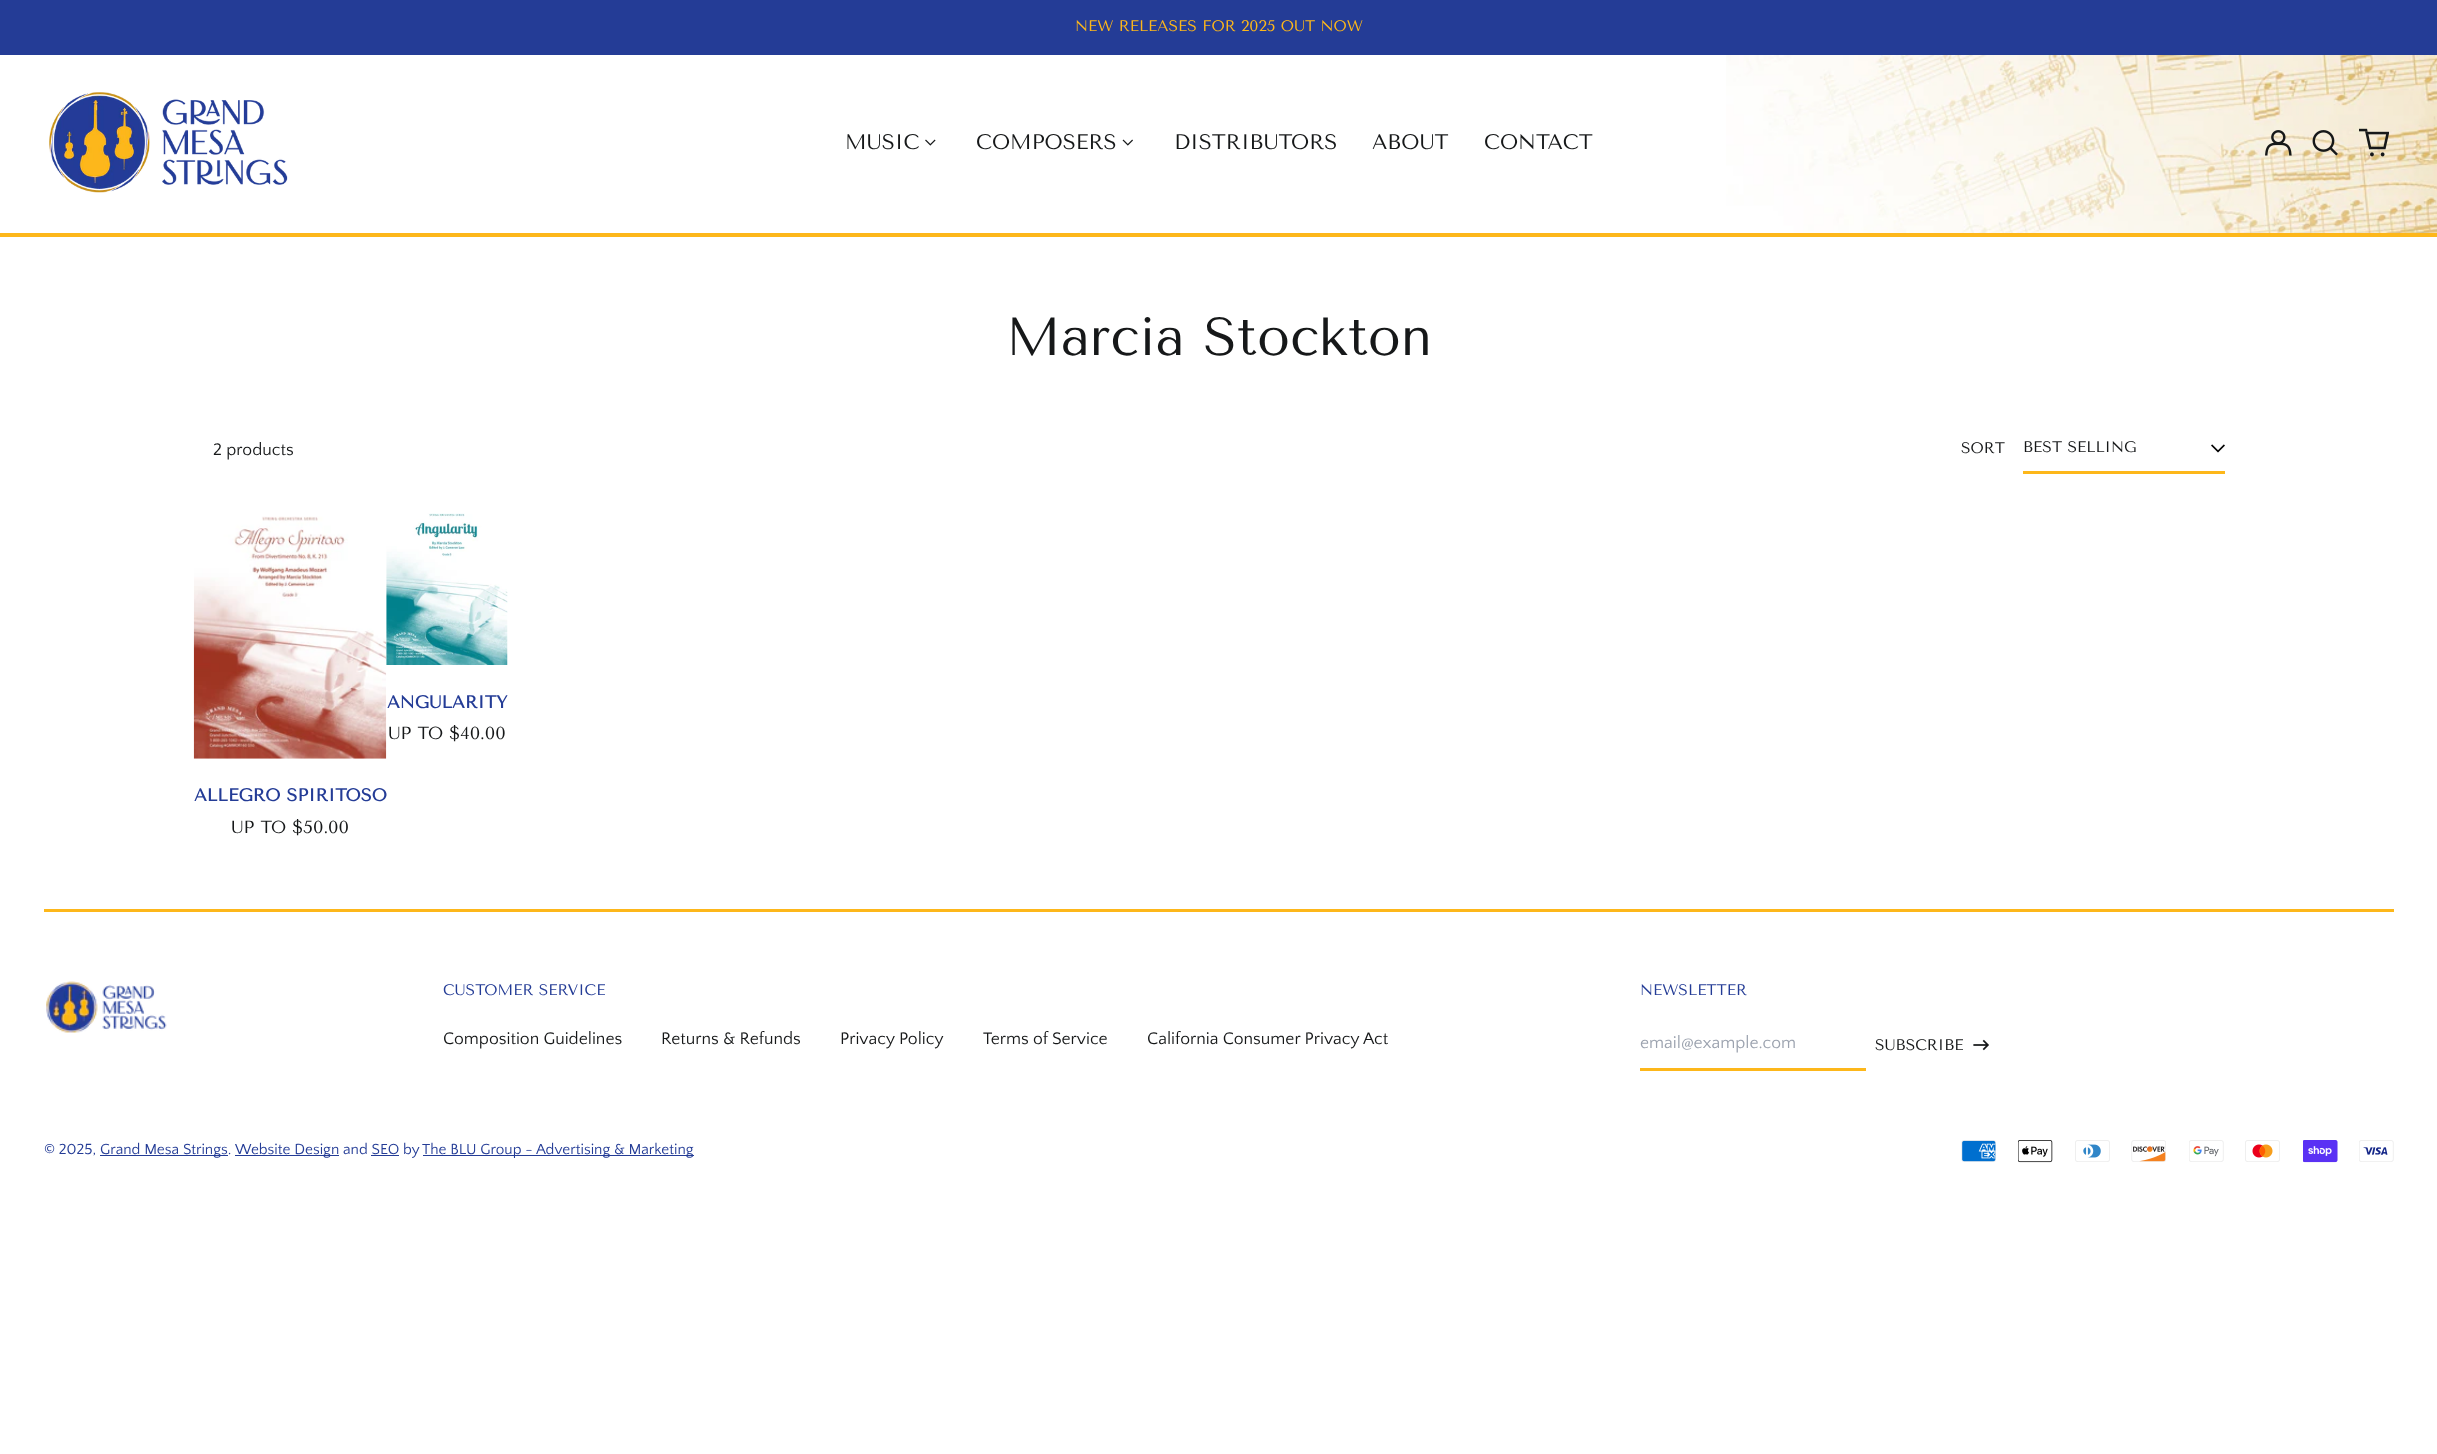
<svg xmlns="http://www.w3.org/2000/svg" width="2437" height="1454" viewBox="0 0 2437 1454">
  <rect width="100%" height="100%" fill="#ffffff"/>
  <rect x="0" y="0" width="2437" height="55" fill="#243c96"/>
  <text x="1075" y="31" font-family="Tenor Sans" font-size="15.3" fill="#fdb71a">NEW RELEASES FOR 2025 OUT NOW</text>
  <image x="1726" y="55" width="711" height="178" href="img1.png"/>
  <rect x="0" y="233" width="2437" height="4" fill="#fdb71a"/>
  <image x="49" y="92" width="239" height="101" href="img2.png"/>
  <text x="845" y="149" font-family="Tenor Sans" font-size="21" fill="#161819">MUSIC</text>
  <image x="925" y="139" width="11" height="7" href="img3.png"/>
  <text x="976" y="149" font-family="Tenor Sans" font-size="21" fill="#161819">COMPOSERS</text>
  <image x="1122" y="139" width="11" height="7" href="img4.png"/>
  <text x="1174" y="149" font-family="Tenor Sans" font-size="21" fill="#161819">DISTRIBUTORS</text>
  <text x="1372" y="149" font-family="Tenor Sans" font-size="21" fill="#161819">ABOUT</text>
  <text x="1484" y="149" font-family="Tenor Sans" font-size="21" fill="#161819">CONTACT</text>
  <image x="2265" y="130" width="27" height="26" href="img5.png"/>
  <image x="2312" y="130" width="26" height="26" href="img6.png"/>
  <image x="2359" y="128" width="30" height="29" href="img7.png"/>
  <text x="1006" y="355" font-family="Tenor Sans" font-size="53.5" fill="#161819">Marcia Stockton</text>
  <text x="213" y="455" font-family="Quattrocento Sans" font-size="17.5" fill="#161819">2 products</text>
  <text x="1961" y="453" font-family="Tenor Sans" font-size="15.3" fill="#161819">SORT</text>
  <image x="2211" y="444" width="14" height="9" href="img8.png"/>
  <rect x="2023" y="471" width="202" height="3" fill="#fdb71a"/>
  <text x="2023" y="452" font-family="Tenor Sans" font-size="15.3" fill="#161819">BEST SELLING</text>
  <image x="193" y="516" width="194" height="243" href="img10.png"/>
  <image x="386" y="513" width="122" height="152" href="img9.png"/>
  <text x="387" y="708" font-family="Tenor Sans" font-size="17.5" font-weight="bold" fill="#243c96">ANGULARITY</text>
  <text x="388" y="739" font-family="Tenor Sans" font-size="17.5" fill="#161819">UP TO $40.00</text>
  <text x="194" y="801" font-family="Tenor Sans" font-size="17.5" font-weight="bold" fill="#243c96">ALLEGRO SPIRITOSO</text>
  <text x="231" y="833" font-family="Tenor Sans" font-size="17.5" fill="#161819">UP TO $50.00</text>
  <rect x="44" y="909" width="2350" height="3" fill="#fdb71a"/>
  <image x="46" y="981" width="121" height="52" href="img11.png"/>
  <text x="443" y="995" font-family="Tenor Sans" font-size="15.3" fill="#243c96">CUSTOMER SERVICE</text>
  <text x="443" y="1044" font-family="Quattrocento Sans" font-size="17.5" fill="#161819">Composition Guidelines</text>
  <text x="661" y="1044" font-family="Quattrocento Sans" font-size="17.5" fill="#161819">Returns &amp; Refunds</text>
  <text x="840" y="1044" font-family="Quattrocento Sans" font-size="17.5" fill="#161819">Privacy Policy</text>
  <text x="983" y="1044" font-family="Quattrocento Sans" font-size="17.5" fill="#161819">Terms of Service</text>
  <text x="1147" y="1044" font-family="Quattrocento Sans" font-size="17.5" fill="#161819">California Consumer Privacy Act</text>
  <text x="1640" y="995" font-family="Tenor Sans" font-size="15.3" fill="#243c96">NEWSLETTER</text>
  <rect x="1640" y="1068" width="226" height="3" fill="#fdb71a"/>
  <text x="1640" y="1048" font-family="Quattrocento Sans" font-size="17.5" fill="#9ca3af">email@example.com</text>
  <text x="1875" y="1050" font-family="Tenor Sans" font-size="15.3" fill="#161819">SUBSCRIBE</text>
  <image x="1973" y="1039" width="16" height="12" href="img12.png"/>
  <text x="44" y="1154" font-family="Quattrocento Sans" font-size="15.3" fill="#243c96">© 2025,</text>
  <rect x="100" y="1155" width="128" height="1" fill="#243c96"/>
  <text x="100" y="1154" font-family="Quattrocento Sans" font-size="15.3" fill="#243c96">Grand Mesa Strings.</text>
  <rect x="235" y="1155" width="104" height="1" fill="#243c96"/>
  <text x="235" y="1154" font-family="Quattrocento Sans" font-size="15.3" fill="#243c96">Website Design and SEO by</text>
  <rect x="423" y="1155" width="271" height="1" fill="#243c96"/>
  <text x="422" y="1154" font-family="Quattrocento Sans" font-size="15.3" fill="#243c96">The BLU Group - Advertising &amp; Marketing</text>
  <rect x="371" y="1155" width="28" height="1" fill="#243c96"/>
  <image x="1961" y="1140" width="35" height="22" href="img13.png"/>
  <image x="2018" y="1140" width="35" height="23" href="img14.png"/>
  <image x="2075" y="1140" width="35" height="22" href="img15.png"/>
  <image x="2131" y="1140" width="35" height="22" href="img16.png"/>
  <image x="2189" y="1140" width="35" height="22" href="img17.png"/>
  <image x="2245" y="1140" width="35" height="22" href="img18.png"/>
  <image x="2303" y="1140" width="35" height="23" href="img19.png"/>
  <image x="2359" y="1140" width="35" height="22" href="img20.png"/>
</svg>
